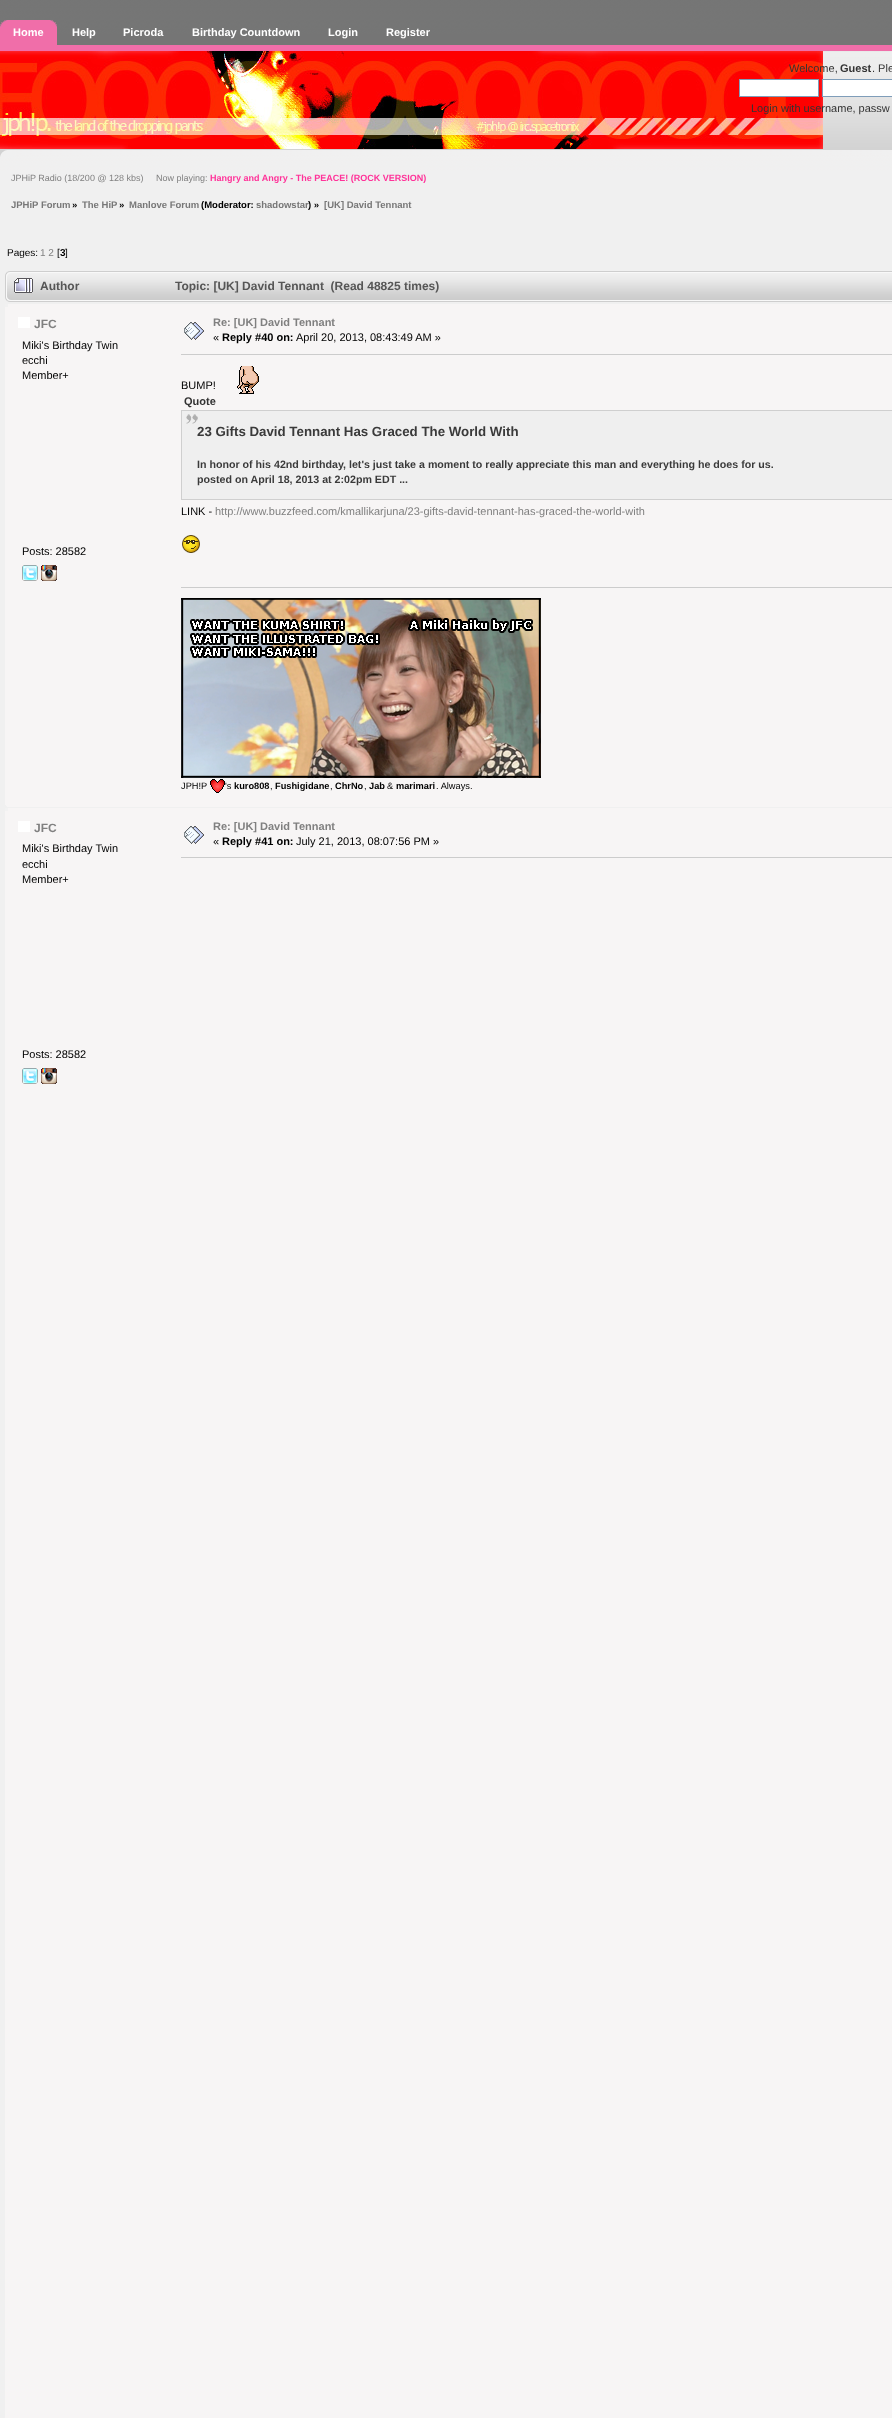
<svg xmlns="http://www.w3.org/2000/svg" width="892" height="2418" viewBox="0 0 892 2418">
  <rect width="100%" height="100%" fill="#f0f0f0"/>
  <image x="0" y="0" width="892" height="171" href="img1.png"/>
  <image x="0" y="45" width="15" height="112" href="img2.png"/>
  <image x="0" y="20" width="57" height="25" href="img3.png"/>
  <image x="50" y="20" width="7" height="7" href="img4.png"/>
  <text x="13" y="36" font-family="Liberation Sans" font-size="11" font-weight="bold" fill="#ffffff">Home</text>
  <text x="72" y="36" font-family="Liberation Sans" font-size="11" font-weight="bold" fill="#ffffff">Help</text>
  <text x="123" y="36" font-family="Liberation Sans" font-size="11" font-weight="bold" fill="#ffffff">Picroda</text>
  <text x="192" y="36" font-family="Liberation Sans" font-size="11" font-weight="bold" fill="#ffffff">Birthday Countdown</text>
  <text x="328" y="36" font-family="Liberation Sans" font-size="11" font-weight="bold" fill="#ffffff">Login</text>
  <text x="386" y="36" font-family="Liberation Sans" font-size="11" font-weight="bold" fill="#ffffff">Register</text>
  <image x="0" y="51" width="823" height="98" href="img5.png"/>
  <text x="789" y="72" font-family="Liberation Sans" font-size="11" fill="#333333">Welcome,</text>
  <text x="840" y="72" font-family="Liberation Sans" font-size="11" font-weight="bold" fill="#333333">Guest</text>
  <text x="872" y="72" font-family="Liberation Sans" font-size="11" fill="#333333">. Ple</text>
  <rect x="739.5" y="79.5" width="79" height="17" fill="#ffffff" stroke="#7f9db9"/>
  <rect x="822.5" y="79.5" width="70" height="17" fill="#ffffff" stroke="#7f9db9"/>
  <text x="751" y="112" font-family="Liberation Sans" font-size="11" fill="#333333">Login with username, passw</text>
  <text x="11" y="181" font-family="Liberation Sans" font-size="9" fill="#808080" xml:space="preserve">JPHiP Radio (18/200 @ 128 kbs)     Now playing:</text>
  <text x="210" y="181" font-family="Liberation Sans" font-size="9" font-weight="bold" fill="#ff3399">Hangry and Angry - The PEACE! (ROCK VERSION)</text>
  <text x="11" y="208" font-family="Liberation Sans" font-size="9.5" font-weight="bold" fill="#777777">JPHiP Forum</text>
  <text x="72" y="208" font-family="Liberation Sans" font-size="9.5" font-weight="bold" fill="#000000">»</text>
  <text x="82" y="208" font-family="Liberation Sans" font-size="9.5" font-weight="bold" fill="#777777">The HiP</text>
  <text x="119" y="208" font-family="Liberation Sans" font-size="9.5" font-weight="bold" fill="#000000">»</text>
  <text x="129" y="208" font-family="Liberation Sans" font-size="9.5" font-weight="bold" fill="#777777">Manlove Forum</text>
  <text x="201" y="208" font-family="Liberation Sans" font-size="9.5" font-weight="bold" fill="#000000">(Moderator:</text>
  <text x="256" y="208" font-family="Liberation Sans" font-size="9.5" font-weight="bold" fill="#777777">shadowstar</text>
  <text x="308" y="208" font-family="Liberation Sans" font-size="9.5" font-weight="bold" fill="#000000">) »</text>
  <text x="324" y="208" font-family="Liberation Sans" font-size="9.5" font-weight="bold" fill="#777777">[UK] David Tennant</text>
  <text x="7" y="256" font-family="Liberation Sans" font-size="10" fill="#000000">Pages:</text>
  <text x="40" y="256" font-family="Liberation Sans" font-size="10" fill="#808080">1 2</text>
  <text x="57" y="256" font-family="Liberation Sans" font-size="10" fill="#000000">[</text>
  <text x="60" y="256" font-family="Liberation Sans" font-size="10" font-weight="bold" fill="#000000">3</text>
  <text x="65" y="256" font-family="Liberation Sans" font-size="10" fill="#000000">]</text>
  <image x="5" y="271" width="887" height="31" href="img6.png"/>
  <image x="14" y="278" width="19" height="15" href="img7.png"/>
  <text x="40" y="290" font-family="Liberation Sans" font-size="12" font-weight="bold" fill="#565656">Author</text>
  <text x="175" y="290" font-family="Liberation Sans" font-size="12" font-weight="bold" fill="#565656" xml:space="preserve">Topic: [UK] David Tennant  (Read 48825 times)</text>
  <rect x="5" y="304" width="887" height="503" fill="#f7f5f5"/>
  <rect x="5" y="304" width="3" height="3" fill="#f1f1f1"/>
  <rect x="18" y="317" width="12" height="11" fill="#ffffff"/>
  <text x="34" y="328" font-family="Liberation Sans" font-size="12" font-weight="bold" fill="#808080">JFC</text>
  <text x="22" y="349" font-family="Liberation Sans" font-size="11" fill="#000000">Miki's Birthday Twin</text>
  <text x="22" y="364" font-family="Liberation Sans" font-size="11" fill="#000000">ecchi</text>
  <text x="22" y="379" font-family="Liberation Sans" font-size="11" fill="#000000">Member+</text>
  <text x="22" y="555" font-family="Liberation Sans" font-size="11" fill="#000000">Posts: 28582</text>
  <image x="22" y="565" width="16" height="16" href="img8.png"/>
  <image x="41" y="565" width="16" height="16" href="img9.png"/>
  <image x="184" y="322" width="20" height="18" href="img10.png"/>
  <text x="213" y="326" font-family="Liberation Sans" font-size="11" font-weight="bold" fill="#808080">Re: [UK] David Tennant</text>
  <text x="213" y="341" font-family="Liberation Sans" font-size="11" fill="#000000">«</text>
  <text x="222" y="341" font-family="Liberation Sans" font-size="11" font-weight="bold" fill="#000000">Reply #40 on:</text>
  <text x="296" y="341" font-family="Liberation Sans" font-size="11" fill="#000000">April 20, 2013, 08:43:49 AM »</text>
  <rect x="181" y="354" width="711" height="1" fill="#cccccc"/>
  <text x="181" y="389" font-family="Liberation Sans" font-size="11" fill="#000000">BUMP!</text>
  <image x="237" y="366" width="22" height="28" href="img11.png"/>
  <text x="184" y="405" font-family="Liberation Sans" font-size="11" font-weight="bold" fill="#333333">Quote</text>
  <rect x="182" y="411" width="710" height="88" fill="#efefef"/>
  <image x="186" y="414" width="12" height="10" href="img12.png"/>
  <rect x="181.5" y="410.5" width="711" height="89" fill="none" stroke="#cfcfcf"/>
  <text x="197" y="436" font-family="Liberation Sans" font-size="13.3" font-weight="bold" fill="#3a3a3a">23 Gifts David Tennant Has Graced The World With</text>
  <text x="197" y="468" font-family="Liberation Sans" font-size="10.67" font-weight="bold" fill="#3a3a3a">In honor of his 42nd birthday, let's just take a moment to really appreciate this man and everything he does for us.</text>
  <text x="197" y="483" font-family="Liberation Sans" font-size="10.67" font-weight="bold" fill="#3a3a3a">posted on April 18, 2013 at 2:02pm EDT ...</text>
  <text x="181" y="515" font-family="Liberation Sans" font-size="11" fill="#000000">LINK -</text>
  <text x="215" y="515" font-family="Liberation Sans" font-size="11" fill="#808080">http://www.buzzfeed.com/kmallikarjuna/23-gifts-david-tennant-has-graced-the-world-with</text>
  <image x="182" y="535" width="18" height="18" href="img13.png"/>
  <rect x="181" y="587" width="711" height="1" fill="#cccccc"/>
  <image x="181" y="598" width="360" height="180" href="img14.png"/>
  <text x="181" y="789" font-family="Liberation Sans" font-size="9.25" fill="#000000">JPH!P</text>
  <image x="210" y="779" width="15" height="14" href="img15.png"/>
  <text x="225" y="789" font-family="Liberation Sans" font-size="9.25" fill="#000000">'s</text>
  <text x="234" y="789" font-family="Liberation Sans" font-size="9.25" font-weight="bold" fill="#000000">kuro808</text>
  <text x="270" y="789" font-family="Liberation Sans" font-size="9.25" fill="#000000">,</text>
  <text x="275" y="789" font-family="Liberation Sans" font-size="9.25" font-weight="bold" fill="#000000">Fushigidane</text>
  <text x="330" y="789" font-family="Liberation Sans" font-size="9.25" fill="#000000">,</text>
  <text x="335" y="789" font-family="Liberation Sans" font-size="9.25" font-weight="bold" fill="#000000">ChrNo</text>
  <text x="364" y="789" font-family="Liberation Sans" font-size="9.25" fill="#000000">,</text>
  <text x="369" y="789" font-family="Liberation Sans" font-size="9.25" font-weight="bold" fill="#000000">Jab</text>
  <text x="387" y="789" font-family="Liberation Sans" font-size="9.25" fill="#000000">&amp;</text>
  <text x="396" y="789" font-family="Liberation Sans" font-size="9.25" font-weight="bold" fill="#000000">marimari</text>
  <text x="436" y="789" font-family="Liberation Sans" font-size="9.25" fill="#000000">. Always.</text>
  <image x="5" y="805" width="2" height="2" href="img16.png"/>
  <rect x="5" y="808" width="887" height="1610" fill="#f7f5f5"/>
  <rect x="5" y="808" width="3" height="3" fill="#f2f2f2"/>
  <rect x="18" y="821" width="12" height="11" fill="#ffffff"/>
  <text x="34" y="832" font-family="Liberation Sans" font-size="12" font-weight="bold" fill="#808080">JFC</text>
  <text x="22" y="852" font-family="Liberation Sans" font-size="11" fill="#000000">Miki's Birthday Twin</text>
  <text x="22" y="868" font-family="Liberation Sans" font-size="11" fill="#000000">ecchi</text>
  <text x="22" y="883" font-family="Liberation Sans" font-size="11" fill="#000000">Member+</text>
  <text x="22" y="1058" font-family="Liberation Sans" font-size="11" fill="#000000">Posts: 28582</text>
  <image x="22" y="1068" width="16" height="16" href="img8.png"/>
  <image x="41" y="1068" width="16" height="16" href="img9.png"/>
  <image x="184" y="826" width="20" height="18" href="img10.png"/>
  <text x="213" y="830" font-family="Liberation Sans" font-size="11" font-weight="bold" fill="#808080">Re: [UK] David Tennant</text>
  <text x="213" y="845" font-family="Liberation Sans" font-size="11" fill="#000000">«</text>
  <text x="222" y="845" font-family="Liberation Sans" font-size="11" font-weight="bold" fill="#000000">Reply #41 on:</text>
  <text x="296" y="845" font-family="Liberation Sans" font-size="11" fill="#000000">July 21, 2013, 08:07:56 PM »</text>
  <rect x="181" y="857" width="711" height="1" fill="#cccccc"/>
</svg>
